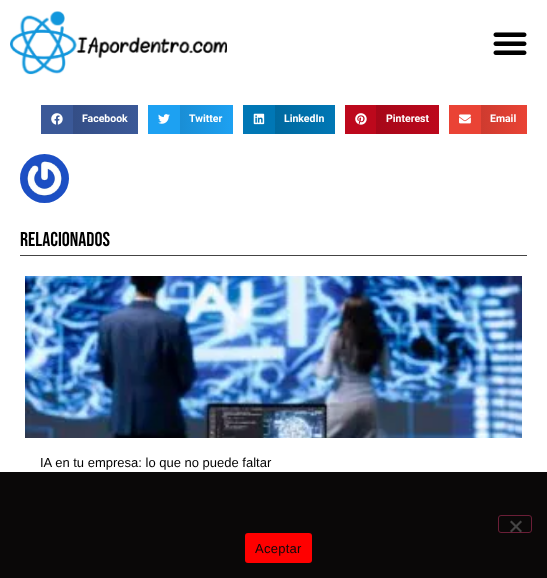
<svg xmlns="http://www.w3.org/2000/svg" width="547" height="578" viewBox="0 0 547 578">
  <defs>
    <linearGradient id="g1" gradientUnits="userSpaceOnUse" x1="73" y1="120" x2="138" y2="120"><stop offset="0" stop-color="#344e86"/><stop offset="1" stop-color="#3b5998"/></linearGradient>
    <linearGradient id="g2" gradientUnits="userSpaceOnUse" x1="180" y1="120" x2="233" y2="120"><stop offset="0" stop-color="#1a8ed5"/><stop offset="1" stop-color="#1da1f2"/></linearGradient>
    <linearGradient id="g3" gradientUnits="userSpaceOnUse" x1="275" y1="120" x2="335" y2="120"><stop offset="0" stop-color="#00699f"/><stop offset="1" stop-color="#0077b5"/></linearGradient>
    <linearGradient id="g4" gradientUnits="userSpaceOnUse" x1="376" y1="120" x2="439" y2="120"><stop offset="0" stop-color="#a60719"/><stop offset="1" stop-color="#bd081c"/></linearGradient>
    <linearGradient id="g5" gradientUnits="userSpaceOnUse" x1="481" y1="120" x2="527" y2="120"><stop offset="0" stop-color="#ce3b2f"/><stop offset="1" stop-color="#ea4335"/></linearGradient>
  </defs>
  <rect width="100%" height="100%" fill="#ffffff"/>
  <image x="10" y="11" width="217" height="64" href="img1.png"/>
  <image x="493" y="32" width="34" height="23" href="img2.png"/>
  <rect x="41" y="105" width="32" height="29" fill="#3b5998"/>
  <image x="51" y="113" width="12" height="12" href="img3.png"/>
  <rect x="73" y="105" width="65" height="29" fill="url(#g1)"/>
  <text x="82" y="122" font-family="Roboto" font-size="10.5" font-weight="bold" fill="#ffffff">Facebook</text>
  <rect x="148" y="105" width="32" height="29" fill="#1da1f2"/>
  <image x="158" y="114" width="12" height="10" href="img4.png"/>
  <rect x="180" y="105" width="53" height="29" fill="url(#g2)"/>
  <text x="189" y="122" font-family="Roboto" font-size="10.5" font-weight="bold" fill="#ffffff">Twitter</text>
  <rect x="243" y="105" width="32" height="29" fill="#0077b5"/>
  <image x="253" y="113" width="12" height="12" href="img5.png"/>
  <rect x="275" y="105" width="60" height="29" fill="url(#g3)"/>
  <text x="284" y="122" font-family="Roboto" font-size="10.5" font-weight="bold" fill="#ffffff">LinkedIn</text>
  <rect x="345" y="105" width="31" height="29" fill="#bd081c"/>
  <image x="355" y="113" width="12" height="12" href="img6.png"/>
  <rect x="376" y="105" width="63" height="29" fill="url(#g4)"/>
  <text x="386" y="122" font-family="Roboto" font-size="10.5" font-weight="bold" fill="#ffffff">Pinterest</text>
  <rect x="449" y="105" width="32" height="29" fill="#ea4335"/>
  <image x="459" y="114" width="12" height="10" href="img7.png"/>
  <rect x="481" y="105" width="46" height="29" fill="url(#g5)"/>
  <text x="490" y="122" font-family="Roboto" font-size="10.5" font-weight="bold" fill="#ffffff">Email</text>
  <image x="20" y="154" width="49" height="49" href="img8.png"/>
  <rect x="20" y="255" width="507" height="1" fill="#444444"/>
  <text x="20" y="246" font-family="Bebas Neue" font-size="20" fill="#000000">RELACIONADOS</text>
  <image x="25" y="276" width="497" height="162" href="img9.png"/>
  <text x="40" y="467" font-family="Liberation Sans" font-size="13" fill="#000000">IA en tu empresa: lo que no puede faltar</text>
  <rect x="0" y="472" width="547" height="106" fill="#0a0808"/>
  <rect x="498.5" y="515.5" width="33" height="17" rx="2.5" fill="none" stroke="#6b1e37"/>
  <path d="M520.5 520.5L522 522L511.5 532.5L510 531Z" fill="#454444"/>
  <path d="M510 522L511.5 520.5L522 531L520.5 532.5Z" fill="#454444"/>
  <rect x="245" y="533" width="67" height="30" rx="3" fill="#ff0000"/>
  <text x="255" y="553" font-family="Liberation Sans" font-size="13" letter-spacing="0.25" fill="#0a0a0a">Aceptar</text>
</svg>
